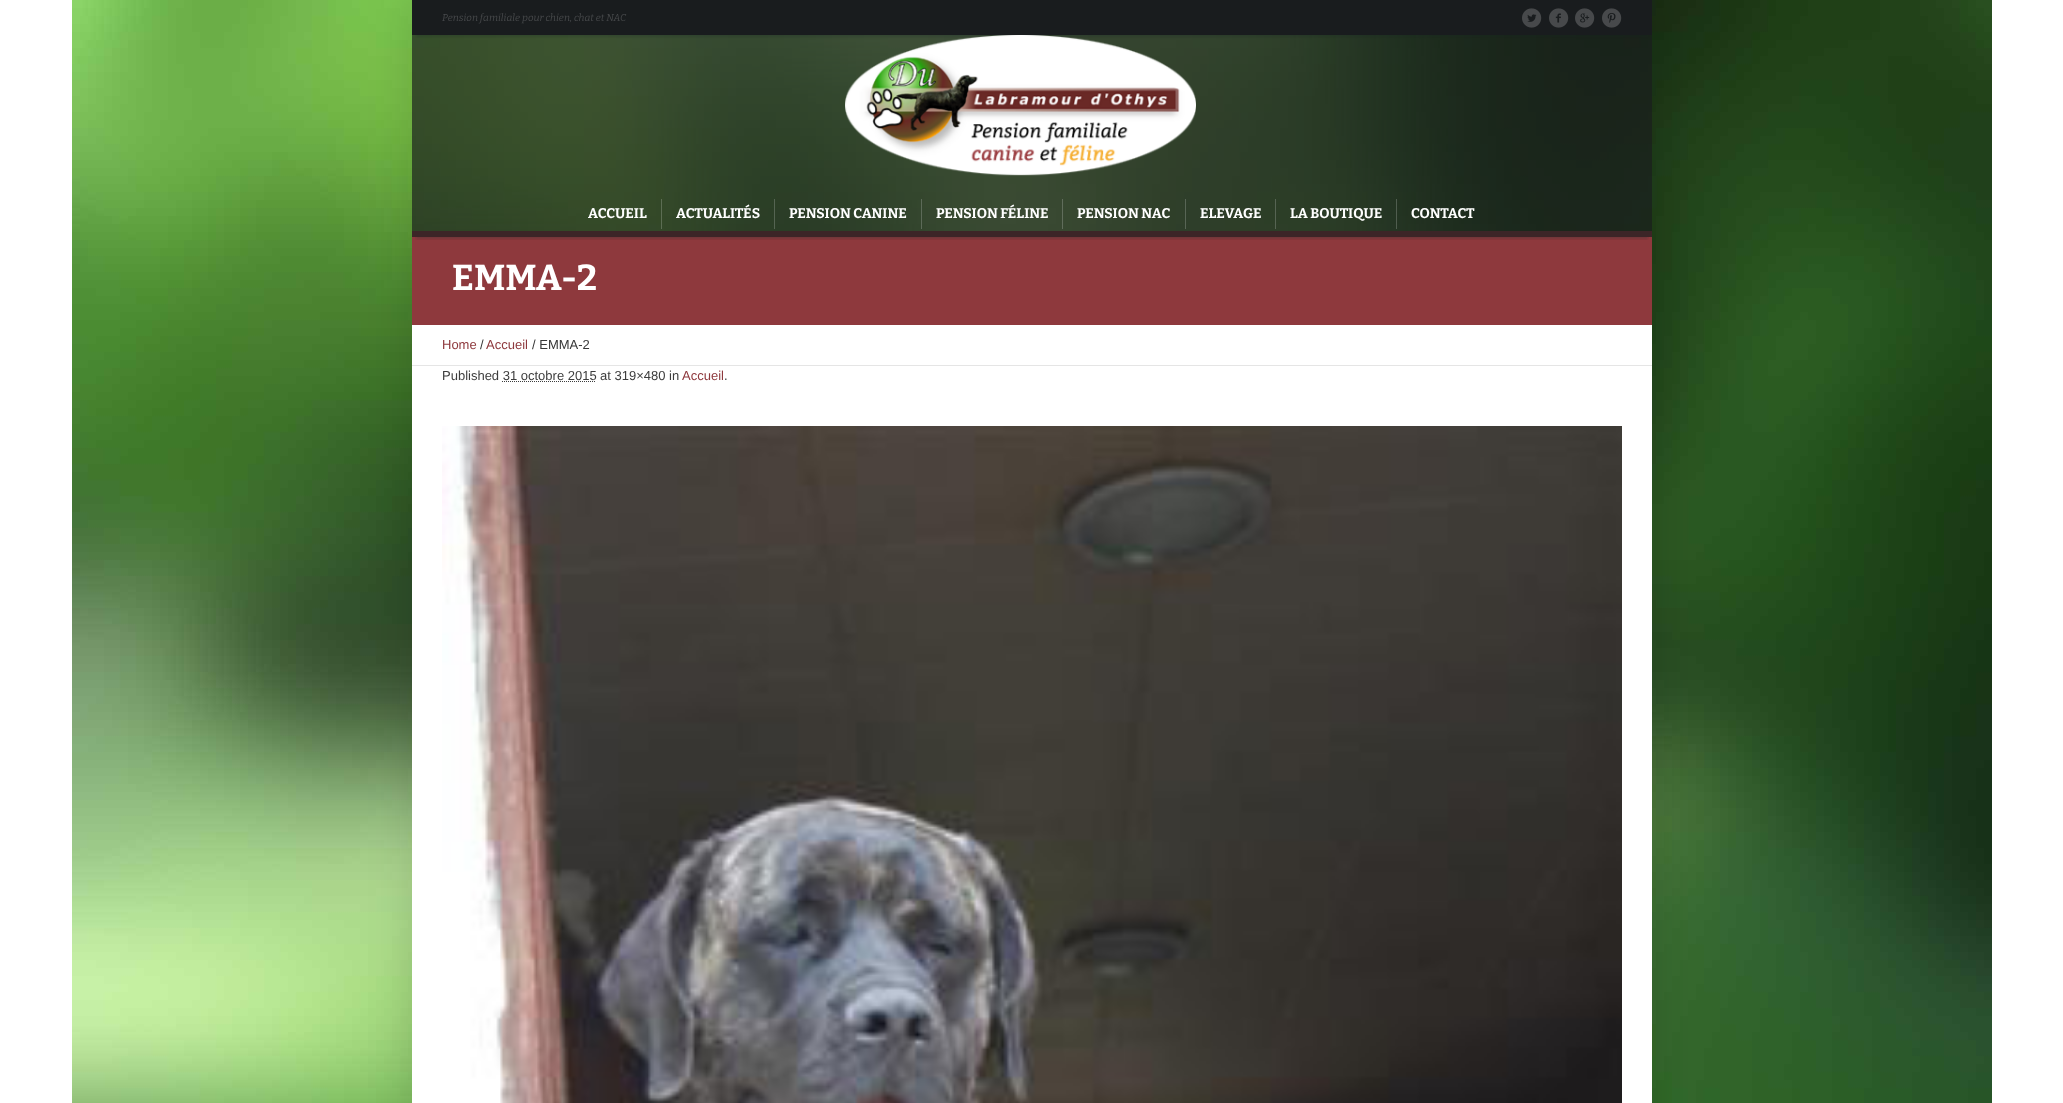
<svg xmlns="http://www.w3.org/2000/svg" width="2063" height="1103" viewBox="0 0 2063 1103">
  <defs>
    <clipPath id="clip1"><path d="M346 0H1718V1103H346ZM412 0H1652V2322H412Z" clip-rule="evenodd"/></clipPath>
    <filter id="blur1" x="-50%" y="-200%" width="200%" height="500%"><feGaussianBlur stdDeviation="20"/></filter>
    <clipPath id="clip2"><rect x="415" y="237" width="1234" height="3"/></clipPath>
    <filter id="blur2" x="-50%" y="-200%" width="200%" height="500%"><feGaussianBlur stdDeviation="1"/></filter>
  </defs>
  <rect width="100%" height="100%" fill="#ffffff"/>
  <image x="72" y="0" width="1920" height="1103" href="img1.png"/>
  <g clip-path="url(#clip1)">
    <rect x="407" y="-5" width="1250" height="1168" fill="#000000" fill-opacity="0.11" filter="url(#blur1)"/>
  </g>
  <rect x="412" y="231" width="1240" height="94" fill="#8e393d"/>
  <g clip-path="url(#clip2)">
    <rect x="416" y="10" width="1232" height="229" fill="#191c1e" fill-opacity="0.2" filter="url(#blur2)"/>
  </g>
  <rect x="416" y="10" width="1232" height="27" fill="#191c1e" fill-opacity="0.2" filter="url(#blur2)"/>
  <rect x="412" y="0" width="1240" height="35" fill="#191c1e"/>
  <text x="442" y="21" font-family="Bitter" font-size="10" font-style="italic" fill="#47494b">Pension familiale pour chien, chat et NAC</text>
  <image x="1522" y="8" width="20" height="20" href="img2.png"/>
  <image x="1549" y="8" width="20" height="20" href="img3.png"/>
  <image x="1575" y="8" width="20" height="20" href="img4.png"/>
  <image x="1602" y="8" width="20" height="20" href="img5.png"/>
  <rect x="412" y="35" width="1240" height="156" fill="#191c1e" fill-opacity="0.7"/>
  <image x="845" y="35" width="351" height="141" href="img6.png"/>
  <rect x="412" y="191" width="1240" height="46" fill="#191c1e" fill-opacity="0.7"/>
  <text x="588" y="218" font-family="Bitter" font-size="14" font-weight="bold" fill="#ffffff">ACCUEIL</text>
  <rect x="661" y="199" width="1" height="30" fill="#5c6d53"/>
  <text x="676" y="218" font-family="Bitter" font-size="14" font-weight="bold" fill="#ffffff">ACTUALITÉS</text>
  <rect x="774" y="199" width="1" height="30" fill="#556452"/>
  <text x="789" y="218" font-family="Bitter" font-size="14" font-weight="bold" fill="#ffffff">PENSION CANINE</text>
  <rect x="921" y="199" width="1" height="30" fill="#5c6a58"/>
  <text x="936" y="218" font-family="Bitter" font-size="14" font-weight="bold" fill="#ffffff">PENSION FÉLINE</text>
  <rect x="1062" y="199" width="1" height="30" fill="#606d5b"/>
  <text x="1077" y="218" font-family="Bitter" font-size="14" font-weight="bold" fill="#ffffff">PENSION NAC</text>
  <rect x="1185" y="199" width="1" height="30" fill="#586555"/>
  <text x="1200" y="218" font-family="Bitter" font-size="14" font-weight="bold" fill="#ffffff">ELEVAGE</text>
  <rect x="1275" y="199" width="1" height="30" fill="#566453"/>
  <text x="1290" y="218" font-family="Bitter" font-size="14" font-weight="bold" fill="#ffffff">LA BOUTIQUE</text>
  <rect x="1396" y="199" width="1" height="30" fill="#505d4f"/>
  <text x="1411" y="218" font-family="Bitter" font-size="14" font-weight="bold" fill="#ffffff">CONTACT</text>
  <text x="452" y="290" font-family="Bitter" font-size="36" font-weight="bold" fill="#ffffff">EMMA-2</text>
  <rect x="412" y="325" width="1240" height="40" fill="#ffffff"/>
  <rect x="412" y="365" width="1240" height="1" fill="#e5e5e5"/>
  <text x="442" y="349" font-family="Liberation Sans" font-size="13" fill="#8e393d">Home</text>
  <text x="480" y="349" font-family="Liberation Sans" font-size="13" fill="#373737">/</text>
  <text x="486" y="349" font-family="Liberation Sans" font-size="13" fill="#8e393d">Accueil</text>
  <text x="532" y="349" font-family="Liberation Sans" font-size="13" fill="#373737">/ EMMA-2</text>
  <rect x="412" y="366" width="1240" height="737" fill="#ffffff"/>
  <text x="442" y="380" font-family="Liberation Sans" font-size="13" fill="#3d3d3d">Published 31 octobre 2015</text>
  <text x="600" y="380" font-family="Liberation Sans" font-size="13" fill="#3d3d3d">at 319×480 in</text>
  <text x="682" y="380" font-family="Liberation Sans" font-size="13" fill="#8e393d">Accueil</text>
  <text x="724" y="380" font-family="Liberation Sans" font-size="13" fill="#3d3d3d">.</text>
  <path d="M502 381.5H596" fill="none" stroke="#3d3d3d" stroke-dasharray="1 1"/>
  <image x="442" y="426" width="1180" height="677" href="img7.png"/>
</svg>
